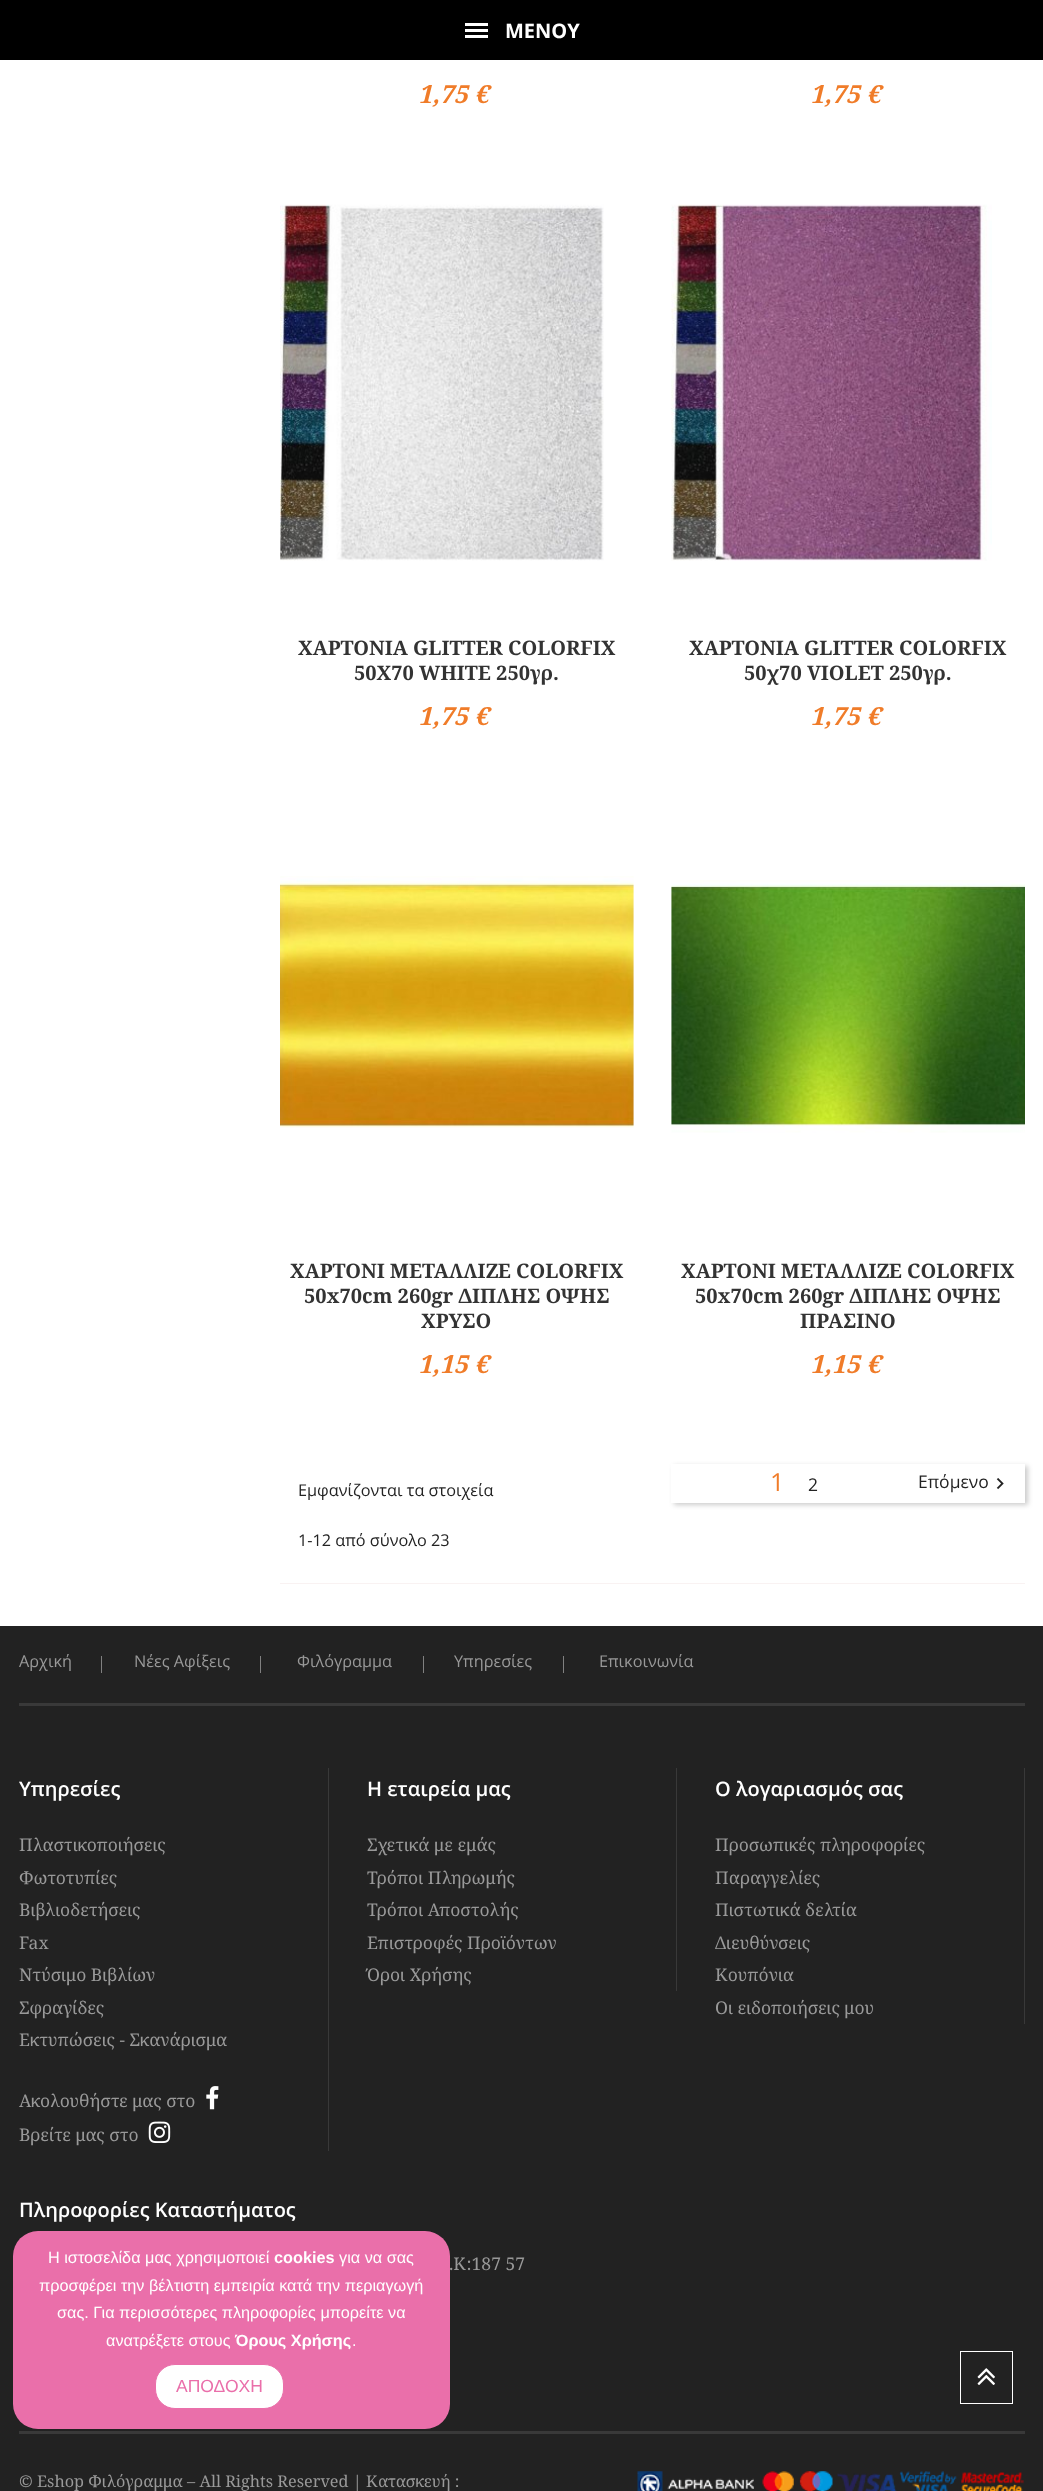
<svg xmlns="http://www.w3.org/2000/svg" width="1043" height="2491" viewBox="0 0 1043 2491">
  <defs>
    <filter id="blur1" x="-50%" y="-200%" width="200%" height="500%"><feGaussianBlur stdDeviation="2.5"/></filter>
  </defs>
  <rect width="100%" height="100%" fill="#ffffff"/>
  <rect x="0" y="0" width="1043" height="60" fill="#000000"/>
  <rect x="465" y="23" width="23" height="3" fill="#ffffff"/>
  <rect x="465" y="29" width="23" height="3" fill="#ffffff"/>
  <rect x="465" y="35" width="23" height="3" fill="#ffffff"/>
  <text x="505" y="38" font-family="Open Sans" font-size="20" font-weight="bold" fill="#ffffff">ΜΕΝΟΥ</text>
  <text x="418" y="103" font-family="Noto Serif" font-size="25" font-weight="bold" font-style="italic" fill="#f07c29">1,75 €</text>
  <text x="810" y="103" font-family="Noto Serif" font-size="25" font-weight="bold" font-style="italic" fill="#f07c29">1,75 €</text>
  <image x="280" y="204" width="324" height="357" href="img1.png"/>
  <text x="298" y="655" font-family="Noto Serif" font-size="20" font-weight="bold" fill="#333333">ΧΑΡΤΟΝΙΑ GLITTER COLORFIX</text>
  <text x="354" y="680" font-family="Noto Serif" font-size="20" font-weight="bold" fill="#333333">50X70 WHITE 250γρ.</text>
  <text x="418" y="725" font-family="Noto Serif" font-size="25" font-weight="bold" font-style="italic" fill="#f07c29">1,75 €</text>
  <image x="671" y="204" width="321" height="357" href="img2.png"/>
  <text x="689" y="655" font-family="Noto Serif" font-size="20" font-weight="bold" fill="#333333">ΧΑΡΤΟΝΙΑ GLITTER COLORFIX</text>
  <text x="744" y="680" font-family="Noto Serif" font-size="20" font-weight="bold" fill="#333333">50χ70 VIOLET 250γρ.</text>
  <text x="810" y="725" font-family="Noto Serif" font-size="25" font-weight="bold" font-style="italic" fill="#f07c29">1,75 €</text>
  <image x="280" y="876" width="354" height="252" href="img3.png"/>
  <text x="290" y="1278" font-family="Noto Serif" font-size="20" font-weight="bold" fill="#333333">ΧΑΡΤΟΝΙ ΜΕΤΑΛΛΙΖΕ COLORFIX</text>
  <text x="304" y="1303" font-family="Noto Serif" font-size="20" font-weight="bold" fill="#333333">50x70cm 260gr ΔΙΠΛΗΣ ΟΨΗΣ</text>
  <text x="421" y="1328" font-family="Noto Serif" font-size="20" font-weight="bold" fill="#333333">ΧΡΥΣΟ</text>
  <text x="418" y="1373" font-family="Noto Serif" font-size="25" font-weight="bold" font-style="italic" fill="#f07c29">1,15 €</text>
  <image x="671" y="880" width="354" height="253" href="img4.png"/>
  <text x="681" y="1278" font-family="Noto Serif" font-size="20" font-weight="bold" fill="#333333">ΧΑΡΤΟΝΙ ΜΕΤΑΛΛΙΖΕ COLORFIX</text>
  <text x="695" y="1303" font-family="Noto Serif" font-size="20" font-weight="bold" fill="#333333">50x70cm 260gr ΔΙΠΛΗΣ ΟΨΗΣ</text>
  <text x="800" y="1328" font-family="Noto Serif" font-size="20" font-weight="bold" fill="#333333">ΠΡΑΣΙΝΟ</text>
  <text x="810" y="1373" font-family="Noto Serif" font-size="25" font-weight="bold" font-style="italic" fill="#f07c29">1,15 €</text>
  <rect x="280" y="1583" width="745" height="1" fill="#f9f2f2"/>
  <text x="298" y="1496" font-family="Open Sans" font-size="16.25" fill="#232323">Εμφανίζονται τα στοιχεία</text>
  <text x="298" y="1546" font-family="Open Sans" font-size="16.25" fill="#232323">1-12 από σύνολο 23</text>
  <rect x="674" y="1466" width="354" height="39" fill="#000000" fill-opacity="0.2" filter="url(#blur1)"/>
  <rect x="671" y="1464" width="354" height="39" fill="#ffffff"/>
  <text x="770" y="1491" font-family="Open Sans" font-size="25" letter-spacing="2" fill="#f07c29">1</text>
  <text x="808" y="1491" font-family="Open Sans" font-size="17.5" letter-spacing="2" fill="#232323">2</text>
  <text x="918" y="1488" font-family="Open Sans" font-size="17.5" fill="#232323">Επόμενο</text>
  <image x="996" y="1478" width="8" height="12" href="img5.png"/>
  <rect x="0" y="1626" width="1043" height="865" fill="#222222"/>
  <rect x="19" y="1703" width="1006" height="3" fill="#393939"/>
  <text x="19" y="1667" font-family="Open Sans" font-size="16.25" fill="#999999">Αρχική</text>
  <rect x="101" y="1656" width="1" height="17" fill="#808080"/>
  <text x="134" y="1667" font-family="Open Sans" font-size="16.25" fill="#999999">Νέες Αφίξεις</text>
  <rect x="260" y="1656" width="1" height="17" fill="#808080"/>
  <text x="297" y="1667" font-family="Open Sans" font-size="16.25" fill="#999999">Φιλόγραμμα</text>
  <rect x="423" y="1656" width="1" height="17" fill="#808080"/>
  <text x="454" y="1667" font-family="Open Sans" font-size="16.25" fill="#999999">Υπηρεσίες</text>
  <rect x="563" y="1656" width="1" height="17" fill="#808080"/>
  <text x="599" y="1667" font-family="Open Sans" font-size="16.25" fill="#999999">Επικοινωνία</text>
  <text x="19" y="1796" font-family="Open Sans" font-size="20" font-weight="600" fill="#ffffff">Υπηρεσίες</text>
  <rect x="328" y="1768" width="1" height="383" fill="#393939"/>
  <text x="19" y="1851" font-family="Noto Serif" font-size="17.5" fill="#999999">Πλαστικοποιήσεις</text>
  <text x="19" y="1884" font-family="Noto Serif" font-size="17.5" fill="#999999">Φωτοτυπίες</text>
  <text x="19" y="1916" font-family="Noto Serif" font-size="17.5" fill="#999999">Βιβλιοδετήσεις</text>
  <text x="19" y="1949" font-family="Noto Serif" font-size="17.5" fill="#999999">Fax</text>
  <text x="19" y="1981" font-family="Noto Serif" font-size="17.5" fill="#999999">Ντύσιμο Βιβλίων</text>
  <text x="19" y="2014" font-family="Noto Serif" font-size="17.5" fill="#999999">Σφραγίδες</text>
  <text x="19" y="2046" font-family="Noto Serif" font-size="17.5" fill="#999999">Εκτυπώσεις - Σκανάρισμα</text>
  <text x="19" y="2107" font-family="Noto Serif" font-size="17.5" fill="#999999">Ακολουθήστε μας στο</text>
  <image x="206" y="2086" width="13" height="24" href="img6.png"/>
  <text x="19" y="2141" font-family="Noto Serif" font-size="17.5" fill="#999999">Βρείτε μας στο</text>
  <image x="148" y="2121" width="23" height="22" href="img7.png"/>
  <text x="367" y="1796" font-family="Open Sans" font-size="20" font-weight="600" fill="#ffffff">Η εταιρεία μας</text>
  <rect x="676" y="1768" width="1" height="223" fill="#393939"/>
  <text x="367" y="1851" font-family="Noto Serif" font-size="17.5" fill="#999999">Σχετικά με εμάς</text>
  <text x="367" y="1884" font-family="Noto Serif" font-size="17.5" fill="#999999">Τρόποι Πληρωμής</text>
  <text x="367" y="1916" font-family="Noto Serif" font-size="17.5" fill="#999999">Τρόποι Αποστολής</text>
  <text x="367" y="1949" font-family="Noto Serif" font-size="17.5" fill="#999999">Επιστροφές Προϊόντων</text>
  <text x="367" y="1981" font-family="Noto Serif" font-size="17.5" fill="#999999">Όροι Χρήσης</text>
  <text x="715" y="1796" font-family="Open Sans" font-size="20" font-weight="600" fill="#ffffff">Ο λογαριασμός σας</text>
  <rect x="1024" y="1768" width="1" height="256" fill="#393939"/>
  <text x="715" y="1851" font-family="Noto Serif" font-size="17.5" fill="#999999">Προσωπικές πληροφορίες</text>
  <text x="715" y="1884" font-family="Noto Serif" font-size="17.5" fill="#999999">Παραγγελίες</text>
  <text x="715" y="1916" font-family="Noto Serif" font-size="17.5" fill="#999999">Πιστωτικά δελτία</text>
  <text x="715" y="1949" font-family="Noto Serif" font-size="17.5" fill="#999999">Διευθύνσεις</text>
  <text x="715" y="1981" font-family="Noto Serif" font-size="17.5" fill="#999999">Κουπόνια</text>
  <text x="715" y="2014" font-family="Noto Serif" font-size="17.5" fill="#999999">Οι ειδοποιήσεις μου</text>
  <text x="449" y="2270" font-family="Noto Serif" font-size="17.5" fill="#999999">.Κ:187 57</text>
  <rect x="13" y="2231" width="437" height="198" rx="25" fill="#ea6faa"/>
  <text x="48" y="2263" font-family="Liberation Sans" font-size="16.25" fill="#ffffff">Η ιστοσελίδα μας χρησιμοποιεί</text>
  <text x="274" y="2263" font-family="Liberation Sans" font-size="16.25" font-weight="bold" fill="#ffffff">cookies</text>
  <text x="339" y="2263" font-family="Liberation Sans" font-size="16.25" fill="#ffffff">για να σας</text>
  <text x="39" y="2291" font-family="Liberation Sans" font-size="16.25" fill="#ffffff">προσφέρει την βέλτιστη εμπειρία κατά την περιαγωγή</text>
  <text x="57" y="2318" font-family="Liberation Sans" font-size="16.25" fill="#ffffff">σας. Για περισσότερες πληροφορίες μπορείτε να</text>
  <text x="106" y="2346" font-family="Liberation Sans" font-size="16.25" fill="#ffffff">ανατρέξετε στους</text>
  <text x="235" y="2346" font-family="Liberation Sans" font-size="16.25" font-weight="bold" fill="#ffffff">Όρους Χρήσης</text>
  <text x="352" y="2346" font-family="Liberation Sans" font-size="16.25" fill="#ffffff">.</text>
  <rect x="155.5" y="2364.5" width="128" height="44" rx="19.5" fill="#ffffff" stroke="#ea6faa"/>
  <text x="176" y="2392" font-family="Liberation Sans" font-size="17.5" fill="#ea6faa">ΑΠΟΔΟΧΗ</text>
  <text x="19" y="2217" font-family="Open Sans" font-size="20" font-weight="600" fill="#ffffff">Πληροφορίες Καταστήματος</text>
  <rect x="19" y="2431" width="1006" height="3" fill="#393939"/>
  <text x="19" y="2487" font-family="Noto Serif" font-size="16.25" fill="#999999">© Eshop Φιλόγραμμα – All Rights Reserved | Κατασκευή :</text>
  <image x="637" y="2471" width="387" height="20" href="img8.png"/>
  <rect x="960.5" y="2351.5" width="52" height="52" fill="none" stroke="#ffffff"/>
  <image x="977" y="2368" width="18" height="17" href="img9.png"/>
</svg>
